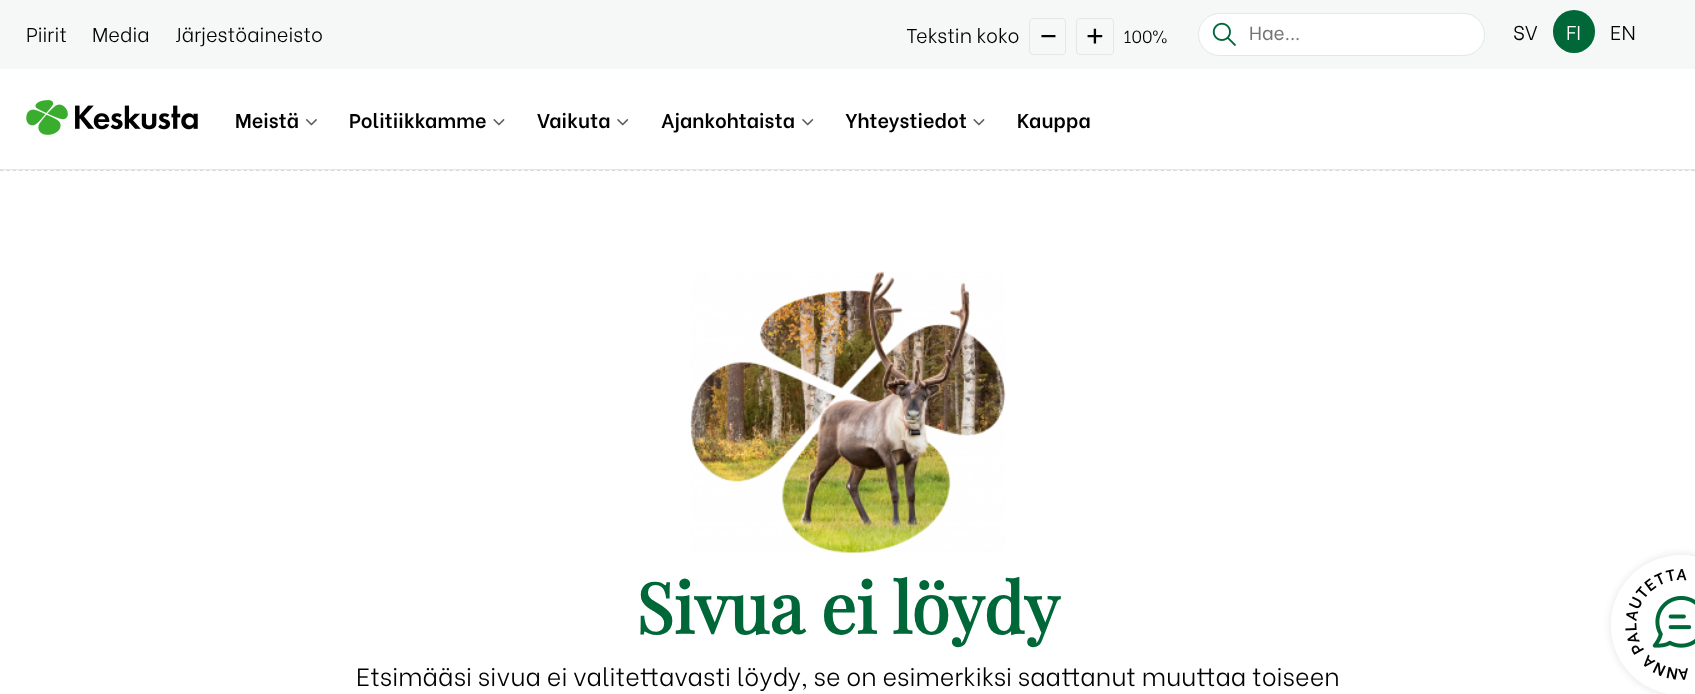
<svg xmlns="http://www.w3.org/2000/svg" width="1695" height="694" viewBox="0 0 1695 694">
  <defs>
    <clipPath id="clip1"><path d="M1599 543H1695V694H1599ZM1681 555C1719.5 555 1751 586.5 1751 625C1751 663.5 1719.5 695 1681 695C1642.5 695 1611 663.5 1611 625C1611 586.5 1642.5 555 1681 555Z" clip-rule="evenodd"/></clipPath>
    <filter id="blur1" x="-50%" y="-200%" width="200%" height="500%"><feGaussianBlur stdDeviation="3"/></filter>
  </defs>
  <rect width="100%" height="100%" fill="#ffffff"/>
  <rect x="0" y="0" width="1695" height="69" fill="#f6f8f8"/>
  <text x="26" y="42" font-family="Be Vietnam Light" font-size="20" font-weight="300" fill="#000000">Piirit</text>
  <text x="92" y="42" font-family="Be Vietnam Light" font-size="20" font-weight="300" fill="#000000">Media</text>
  <text x="175" y="42" font-family="Be Vietnam Light" font-size="20" font-weight="300" fill="#000000">Järjestöaineisto</text>
  <text x="906" y="43" font-family="Be Vietnam Light" font-size="20" font-weight="300" fill="#000000">Tekstin koko</text>
  <rect x="1029.5" y="18.5" width="36" height="36" rx="3.5" fill="none" stroke="#e6e6e6"/>
  <text x="1037" y="48" font-family="Be Vietnam Light" font-size="38" font-weight="300" fill="#000000">-</text>
  <rect x="1076.5" y="18.5" width="37" height="36" rx="3.5" fill="none" stroke="#e6e6e6"/>
  <text x="1084" y="48" font-family="Be Vietnam Light" font-size="38" font-weight="300" fill="#000000">+</text>
  <text x="1123" y="43" font-family="Be Vietnam Light" font-size="17.5" font-weight="300" fill="#000000">100%</text>
  <rect x="1198.5" y="13.5" width="286" height="42" rx="21" fill="#ffffff" stroke="#e2e7e7"/>
  <image x="1212" y="22" width="24" height="24" href="img1.png"/>
  <text x="1249" y="40" font-family="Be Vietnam" font-size="19" fill="#757575">Hae...</text>
  <text x="1513" y="40" font-family="Be Vietnam Light" font-size="20" font-weight="300" fill="#000000">SV</text>
  <rect x="1553" y="10" width="42" height="43" rx="21" fill="#006838"/>
  <text x="1566" y="40" font-family="Be Vietnam Light" font-size="20" font-weight="300" fill="#ffffff">FI</text>
  <text x="1610" y="40" font-family="Be Vietnam Light" font-size="20" font-weight="300" fill="#000000">EN</text>
  <rect x="0" y="169" width="1695" height="1" fill="#e6e6e6"/>
  <image x="26" y="100" width="172" height="35" href="img2.png"/>
  <text x="235" y="128" font-family="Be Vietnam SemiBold" font-size="20" font-weight="600" fill="#000000">Meistä</text>
  <image x="305" y="119" width="12" height="7" href="img3.png"/>
  <text x="349" y="128" font-family="Be Vietnam SemiBold" font-size="20" font-weight="600" fill="#000000">Politiikkamme</text>
  <image x="493" y="119" width="12" height="7" href="img4.png"/>
  <text x="537" y="128" font-family="Be Vietnam SemiBold" font-size="20" font-weight="600" fill="#000000">Vaikuta</text>
  <image x="617" y="119" width="12" height="7" href="img5.png"/>
  <text x="661" y="128" font-family="Be Vietnam SemiBold" font-size="20" font-weight="600" fill="#000000">Ajankohtaista</text>
  <image x="802" y="119" width="12" height="7" href="img5.png"/>
  <text x="845" y="128" font-family="Be Vietnam SemiBold" font-size="20" font-weight="600" fill="#000000">Yhteystiedot</text>
  <image x="973" y="119" width="12" height="7" href="img4.png"/>
  <text x="1017" y="128" font-family="Be Vietnam SemiBold" font-size="20" font-weight="600" fill="#000000">Kauppa</text>
  <path d="M0 170.5H1695" fill="none" stroke="#d9d9d9" stroke-width="1.2" stroke-dasharray="3.75 2.49"/>
  <image x="690" y="271" width="316" height="282" href="img6.png"/>
  <text x="636" y="634" font-family="Playfair Display" font-size="70" font-weight="bold" fill="#006838">Sivua ei löydy</text>
  <text x="356" y="686" font-family="Be Vietnam Light" font-size="25" font-weight="300" fill="#000000">Etsimääsi sivua ei valitettavasti löydy, se on esimerkiksi saattanut muuttaa toiseen</text>
  <g clip-path="url(#clip1)">
    <rect x="1609" y="553" width="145" height="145" rx="72.5" fill="#000000" fill-opacity="0.07" filter="url(#blur1)"/>
  </g>
  <image x="1611" y="563" width="84" height="131" href="img7.png"/>
</svg>
